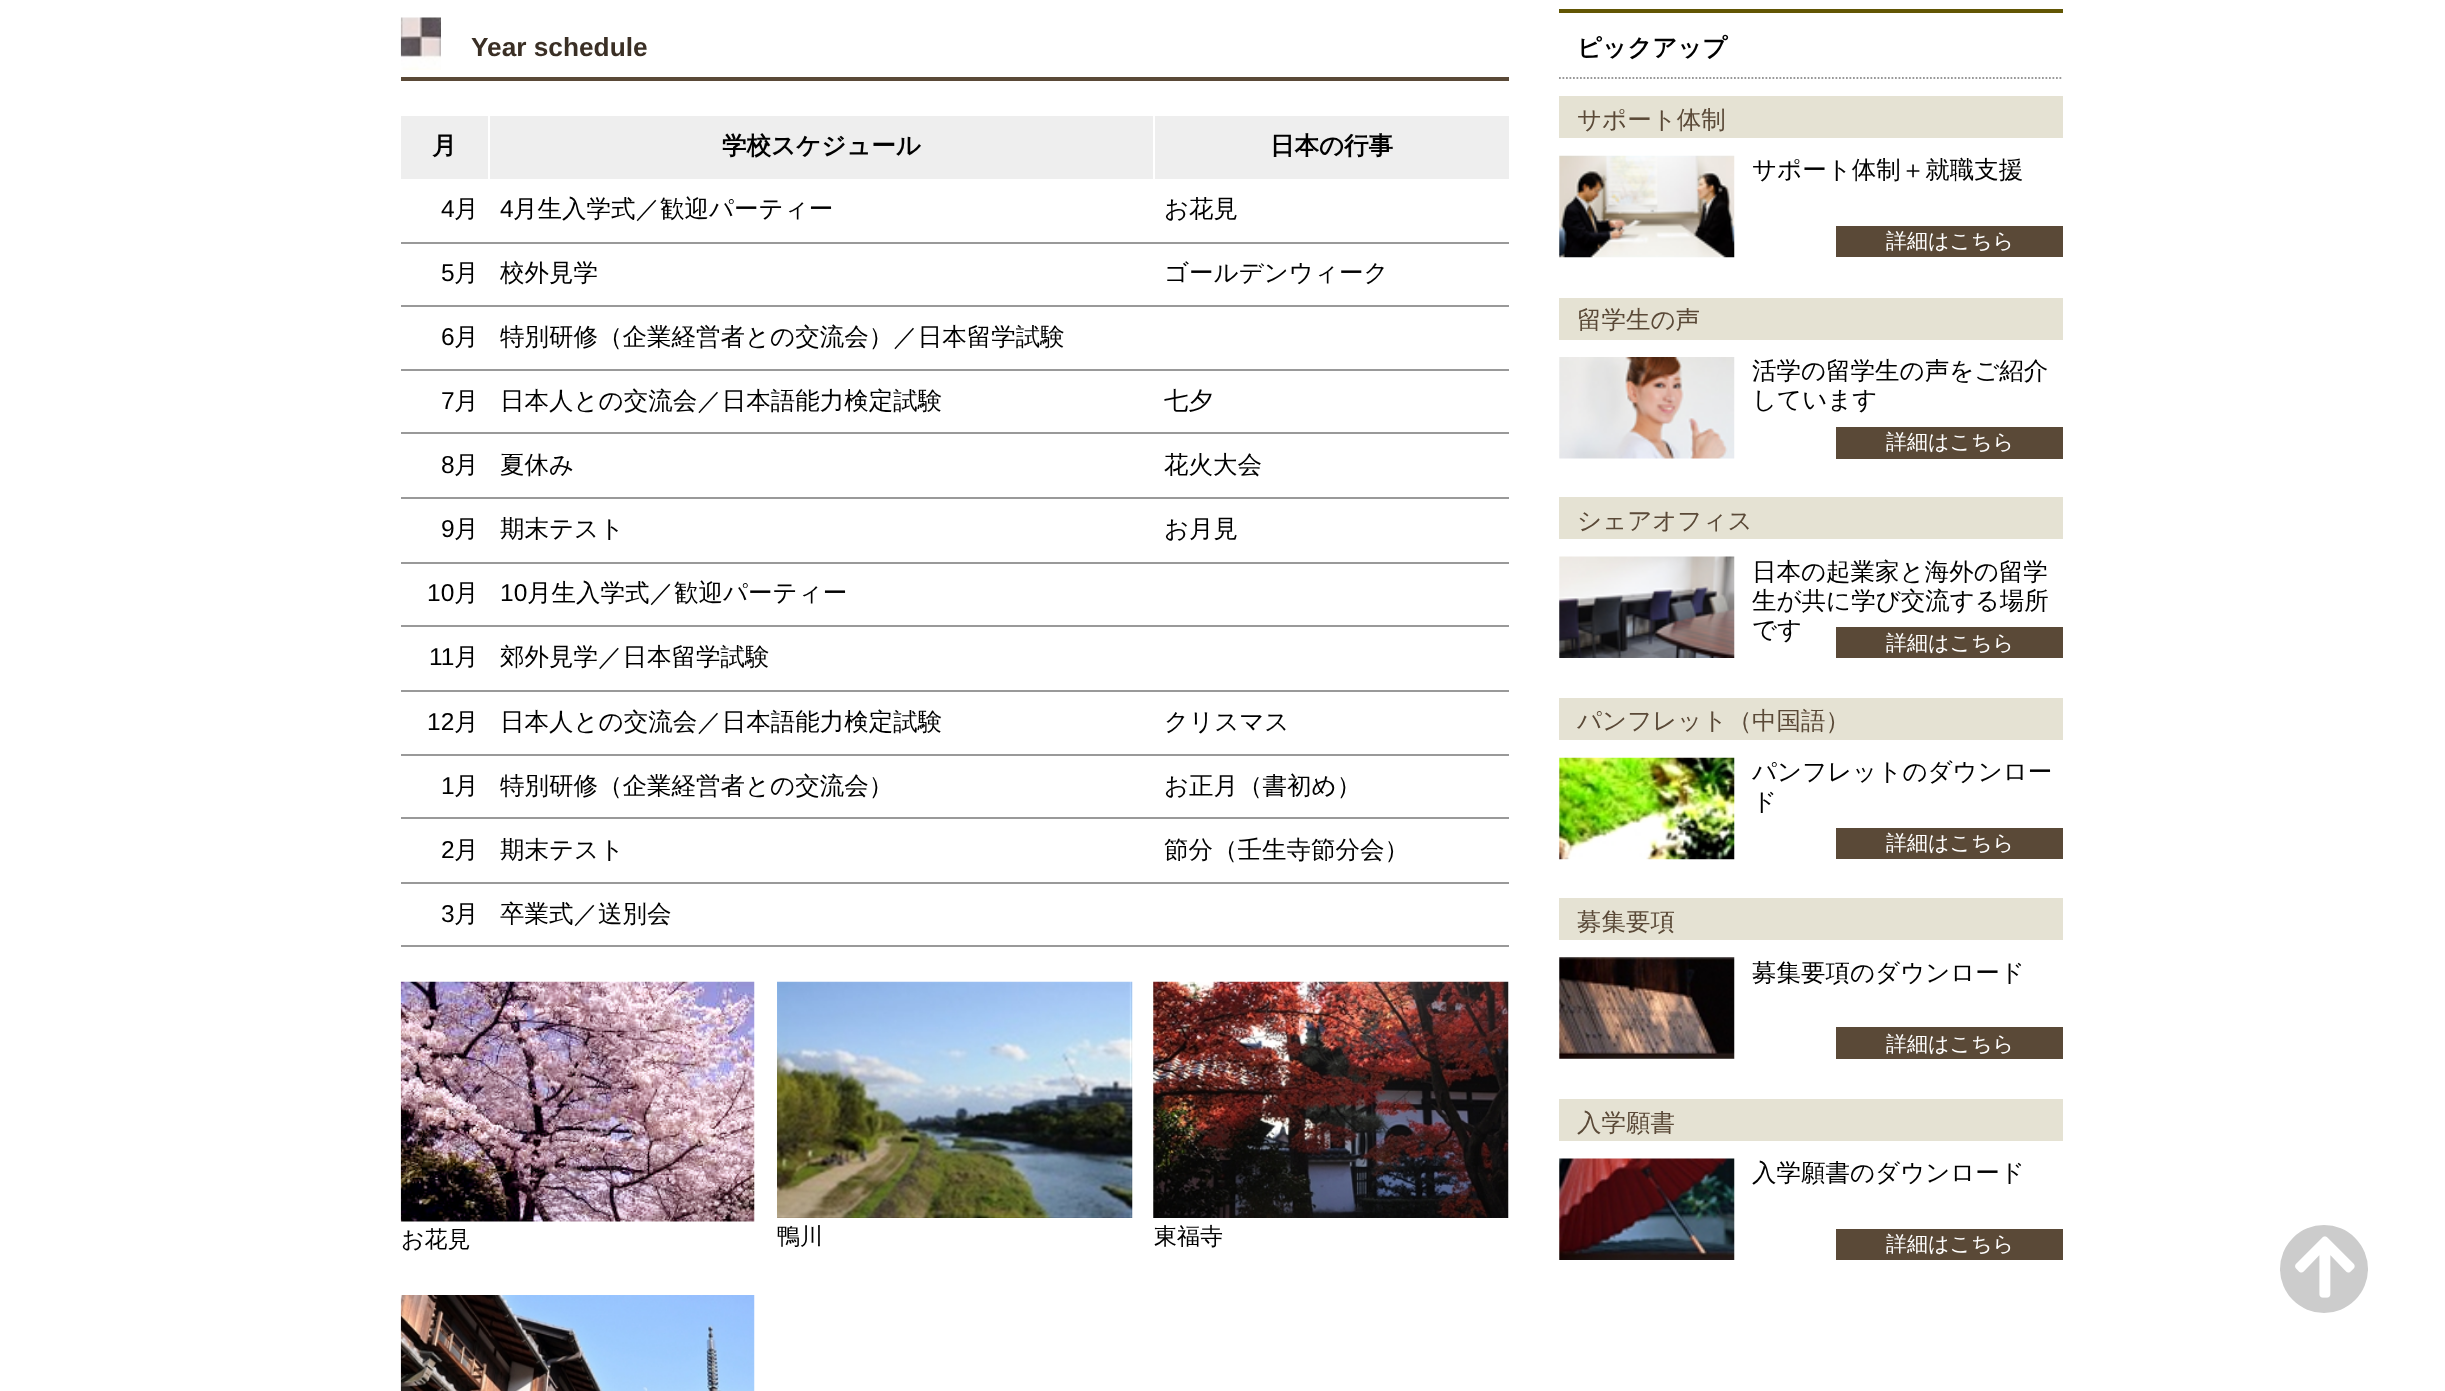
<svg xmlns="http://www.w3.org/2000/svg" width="2445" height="1391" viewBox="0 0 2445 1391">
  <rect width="100%" height="100%" fill="#ffffff"/>
  <image x="400" y="17" width="41" height="53" href="img1.png"/>
  <rect x="401" y="77" width="1108" height="4" fill="#5a4937"/>
  <text x="471" y="56" font-family="Liberation Sans" font-size="26.25" font-weight="bold" fill="#3a2f25">Year schedule</text>
  <rect x="401" y="116" width="87" height="63" fill="#eeeeee"/>
  <text x="432" y="154" font-family="WenQuanYi Zen Hei" font-size="24.5" font-weight="bold" fill="#000000">月</text>
  <rect x="490" y="116" width="663" height="63" fill="#eeeeee"/>
  <text x="722" y="154" font-family="WenQuanYi Zen Hei" font-size="24.5" font-weight="bold" fill="#000000">学校スケジュール</text>
  <rect x="1155" y="116" width="354" height="63" fill="#eeeeee"/>
  <text x="1270" y="154" font-family="WenQuanYi Zen Hei" font-size="24.5" font-weight="bold" fill="#000000">日本の行事</text>
  <text x="441" y="217" font-family="Liberation Sans" font-size="24.5" fill="#000000">4</text>
  <text x="454" y="217" font-family="WenQuanYi Zen Hei" font-size="24.5" font-weight="500" fill="#000000">月</text>
  <text x="500" y="217" font-family="Liberation Sans" font-size="24.5" fill="#000000">4</text>
  <text x="513" y="217" font-family="WenQuanYi Zen Hei" font-size="24.5" font-weight="500" fill="#000000">月生入学式／歓迎パーティー</text>
  <rect x="401" y="242" width="1108" height="2" fill="#999999"/>
  <text x="1164" y="217" font-family="WenQuanYi Zen Hei" font-size="24.5" font-weight="500" fill="#000000">お花見</text>
  <text x="441" y="281" font-family="Liberation Sans" font-size="24.5" fill="#000000">5</text>
  <text x="454" y="281" font-family="WenQuanYi Zen Hei" font-size="24.5" font-weight="500" fill="#000000">月</text>
  <text x="500" y="281" font-family="WenQuanYi Zen Hei" font-size="24.5" font-weight="500" fill="#000000">校外見学</text>
  <rect x="401" y="305" width="1108" height="2" fill="#999999"/>
  <text x="1164" y="281" font-family="WenQuanYi Zen Hei" font-size="24.5" font-weight="500" fill="#000000">ゴールデンウィーク</text>
  <text x="441" y="345" font-family="Liberation Sans" font-size="24.5" fill="#000000">6</text>
  <text x="454" y="345" font-family="WenQuanYi Zen Hei" font-size="24.5" font-weight="500" fill="#000000">月</text>
  <text x="500" y="345" font-family="WenQuanYi Zen Hei" font-size="24.5" font-weight="500" fill="#000000">特別研修（企業経営者との交流会）／日本留学試験</text>
  <rect x="401" y="369" width="1108" height="2" fill="#999999"/>
  <text x="441" y="409" font-family="Liberation Sans" font-size="24.5" fill="#000000">7</text>
  <text x="454" y="409" font-family="WenQuanYi Zen Hei" font-size="24.5" font-weight="500" fill="#000000">月</text>
  <text x="500" y="409" font-family="WenQuanYi Zen Hei" font-size="24.5" font-weight="500" fill="#000000">日本人との交流会／日本語能力検定試験</text>
  <rect x="401" y="432" width="1108" height="2" fill="#999999"/>
  <text x="1164" y="409" font-family="WenQuanYi Zen Hei" font-size="24.5" font-weight="500" fill="#000000">七夕</text>
  <text x="441" y="473" font-family="Liberation Sans" font-size="24.5" fill="#000000">8</text>
  <text x="454" y="473" font-family="WenQuanYi Zen Hei" font-size="24.5" font-weight="500" fill="#000000">月</text>
  <text x="500" y="473" font-family="WenQuanYi Zen Hei" font-size="24.5" font-weight="500" fill="#000000">夏休み</text>
  <rect x="401" y="497" width="1108" height="2" fill="#999999"/>
  <text x="1164" y="473" font-family="WenQuanYi Zen Hei" font-size="24.5" font-weight="500" fill="#000000">花火大会</text>
  <text x="441" y="537" font-family="Liberation Sans" font-size="24.5" fill="#000000">9</text>
  <text x="454" y="537" font-family="WenQuanYi Zen Hei" font-size="24.5" font-weight="500" fill="#000000">月</text>
  <text x="500" y="537" font-family="WenQuanYi Zen Hei" font-size="24.5" font-weight="500" fill="#000000">期末テスト</text>
  <rect x="401" y="562" width="1108" height="2" fill="#999999"/>
  <text x="1164" y="537" font-family="WenQuanYi Zen Hei" font-size="24.5" font-weight="500" fill="#000000">お月見</text>
  <text x="427" y="601" font-family="Liberation Sans" font-size="24.5" fill="#000000">10</text>
  <text x="454" y="601" font-family="WenQuanYi Zen Hei" font-size="24.5" font-weight="500" fill="#000000">月</text>
  <text x="500" y="601" font-family="Liberation Sans" font-size="24.5" fill="#000000">10</text>
  <text x="527" y="601" font-family="WenQuanYi Zen Hei" font-size="24.5" font-weight="500" fill="#000000">月生入学式／歓迎パーティー</text>
  <rect x="401" y="625" width="1108" height="2" fill="#999999"/>
  <text x="429" y="665" font-family="Liberation Sans" font-size="24.5" fill="#000000">11</text>
  <text x="454" y="665" font-family="WenQuanYi Zen Hei" font-size="24.5" font-weight="500" fill="#000000">月</text>
  <text x="500" y="665" font-family="WenQuanYi Zen Hei" font-size="24.5" font-weight="500" fill="#000000">郊外見学／日本留学試験</text>
  <rect x="401" y="690" width="1108" height="2" fill="#999999"/>
  <text x="427" y="730" font-family="Liberation Sans" font-size="24.5" fill="#000000">12</text>
  <text x="454" y="730" font-family="WenQuanYi Zen Hei" font-size="24.5" font-weight="500" fill="#000000">月</text>
  <text x="500" y="730" font-family="WenQuanYi Zen Hei" font-size="24.5" font-weight="500" fill="#000000">日本人との交流会／日本語能力検定試験</text>
  <rect x="401" y="754" width="1108" height="2" fill="#999999"/>
  <text x="1164" y="730" font-family="WenQuanYi Zen Hei" font-size="24.5" font-weight="500" fill="#000000">クリスマス</text>
  <text x="441" y="794" font-family="Liberation Sans" font-size="24.5" fill="#000000">1</text>
  <text x="454" y="794" font-family="WenQuanYi Zen Hei" font-size="24.5" font-weight="500" fill="#000000">月</text>
  <text x="500" y="794" font-family="WenQuanYi Zen Hei" font-size="24.5" font-weight="500" fill="#000000">特別研修（企業経営者との交流会）</text>
  <rect x="401" y="817" width="1108" height="2" fill="#999999"/>
  <text x="1164" y="794" font-family="WenQuanYi Zen Hei" font-size="24.5" font-weight="500" fill="#000000">お正月（書初め）</text>
  <text x="441" y="858" font-family="Liberation Sans" font-size="24.5" fill="#000000">2</text>
  <text x="454" y="858" font-family="WenQuanYi Zen Hei" font-size="24.5" font-weight="500" fill="#000000">月</text>
  <text x="500" y="858" font-family="WenQuanYi Zen Hei" font-size="24.5" font-weight="500" fill="#000000">期末テスト</text>
  <rect x="401" y="882" width="1108" height="2" fill="#999999"/>
  <text x="1164" y="858" font-family="WenQuanYi Zen Hei" font-size="24.5" font-weight="500" fill="#000000">節分（壬生寺節分会）</text>
  <text x="441" y="922" font-family="Liberation Sans" font-size="24.5" fill="#000000">3</text>
  <text x="454" y="922" font-family="WenQuanYi Zen Hei" font-size="24.5" font-weight="500" fill="#000000">月</text>
  <text x="500" y="922" font-family="WenQuanYi Zen Hei" font-size="24.5" font-weight="500" fill="#000000">卒業式／送別会</text>
  <rect x="401" y="945" width="1108" height="2" fill="#999999"/>
  <image x="400" y="981" width="355" height="241" href="img2.png"/>
  <text x="401" y="1247" font-family="WenQuanYi Zen Hei" font-size="23" font-weight="500" fill="#000000">お花見</text>
  <image x="777" y="981" width="356" height="237" href="img3.png"/>
  <text x="777" y="1244" font-family="WenQuanYi Zen Hei" font-size="23" font-weight="500" fill="#000000">鴨川</text>
  <image x="1153" y="981" width="356" height="237" href="img4.png"/>
  <text x="1154" y="1244" font-family="WenQuanYi Zen Hei" font-size="23" font-weight="500" fill="#000000">東福寺</text>
  <image x="400" y="1295" width="355" height="96" href="img5.png"/>
  <rect x="1559" y="9" width="504" height="4" fill="#625604"/>
  <path d="M1559 78H2063" fill="none" stroke="#999999" stroke-width="1.8" stroke-dasharray="1.75 1.75"/>
  <text x="1577" y="56" font-family="WenQuanYi Zen Hei" font-size="24.5" font-weight="bold" fill="#000000">ピックアップ</text>
  <rect x="1559" y="96" width="504" height="42" fill="#e5e2d3"/>
  <text x="1577" y="128" font-family="WenQuanYi Zen Hei" font-size="24.5" font-weight="500" fill="#5a4937">サポート体制</text>
  <image x="1559" y="155" width="176" height="103" href="img6.png"/>
  <text x="1752" y="178" font-family="WenQuanYi Zen Hei" font-size="24.5" font-weight="500" fill="#000000">サポート体制＋就職支援</text>
  <rect x="1836" y="226" width="227" height="31" fill="#5a4937"/>
  <text x="1886" y="248" font-family="WenQuanYi Zen Hei" font-size="21" font-weight="500" fill="#ffffff">詳細はこちら</text>
  <rect x="1559" y="298" width="504" height="42" fill="#e5e2d3"/>
  <text x="1577" y="328" font-family="WenQuanYi Zen Hei" font-size="24.5" font-weight="500" fill="#5a4937">留学生の声</text>
  <image x="1559" y="357" width="176" height="102" href="img7.png"/>
  <text x="1752" y="379" font-family="WenQuanYi Zen Hei" font-size="24.5" font-weight="500" fill="#000000">活学の留学生の声をご紹介</text>
  <text x="1752" y="408" font-family="WenQuanYi Zen Hei" font-size="24.5" font-weight="500" fill="#000000">しています</text>
  <rect x="1836" y="427" width="227" height="32" fill="#5a4937"/>
  <text x="1886" y="449" font-family="WenQuanYi Zen Hei" font-size="21" font-weight="500" fill="#ffffff">詳細はこちら</text>
  <rect x="1559" y="497" width="504" height="42" fill="#e5e2d3"/>
  <text x="1577" y="529" font-family="WenQuanYi Zen Hei" font-size="24.5" font-weight="500" fill="#5a4937">シェアオフィス</text>
  <image x="1559" y="556" width="176" height="102" href="img8.png"/>
  <text x="1752" y="580" font-family="WenQuanYi Zen Hei" font-size="24.5" font-weight="500" fill="#000000">日本の起業家と海外の留学</text>
  <text x="1752" y="609" font-family="WenQuanYi Zen Hei" font-size="24.5" font-weight="500" fill="#000000">生が共に学び交流する場所</text>
  <text x="1752" y="638" font-family="WenQuanYi Zen Hei" font-size="24.5" font-weight="500" fill="#000000">です</text>
  <rect x="1836" y="627" width="227" height="31" fill="#5a4937"/>
  <text x="1886" y="650" font-family="WenQuanYi Zen Hei" font-size="21" font-weight="500" fill="#ffffff">詳細はこちら</text>
  <rect x="1559" y="698" width="504" height="42" fill="#e5e2d3"/>
  <text x="1577" y="729" font-family="WenQuanYi Zen Hei" font-size="24.5" font-weight="500" fill="#5a4937">パンフレット（中国語）</text>
  <image x="1559" y="757" width="176" height="103" href="img9.png"/>
  <text x="1752" y="780" font-family="WenQuanYi Zen Hei" font-size="24.5" font-weight="500" fill="#000000">パンフレットのダウンロー</text>
  <text x="1752" y="810" font-family="WenQuanYi Zen Hei" font-size="24.5" font-weight="500" fill="#000000">ド</text>
  <rect x="1836" y="828" width="227" height="31" fill="#5a4937"/>
  <text x="1886" y="850" font-family="WenQuanYi Zen Hei" font-size="21" font-weight="500" fill="#ffffff">詳細はこちら</text>
  <rect x="1559" y="898" width="504" height="42" fill="#e5e2d3"/>
  <text x="1577" y="930" font-family="WenQuanYi Zen Hei" font-size="24.5" font-weight="500" fill="#5a4937">募集要項</text>
  <image x="1559" y="957" width="176" height="102" href="img10.png"/>
  <text x="1752" y="981" font-family="WenQuanYi Zen Hei" font-size="24.5" font-weight="500" fill="#000000">募集要項のダウンロード</text>
  <rect x="1836" y="1027" width="227" height="32" fill="#5a4937"/>
  <text x="1886" y="1051" font-family="WenQuanYi Zen Hei" font-size="21" font-weight="500" fill="#ffffff">詳細はこちら</text>
  <rect x="1559" y="1099" width="504" height="42" fill="#e5e2d3"/>
  <text x="1577" y="1131" font-family="WenQuanYi Zen Hei" font-size="24.5" font-weight="500" fill="#5a4937">入学願書</text>
  <image x="1559" y="1158" width="176" height="102" href="img11.png"/>
  <text x="1752" y="1181" font-family="WenQuanYi Zen Hei" font-size="24.5" font-weight="500" fill="#000000">入学願書のダウンロード</text>
  <rect x="1836" y="1229" width="227" height="31" fill="#5a4937"/>
  <text x="1886" y="1251" font-family="WenQuanYi Zen Hei" font-size="21" font-weight="500" fill="#ffffff">詳細はこちら</text>
  <circle cx="2324" cy="1269" r="44" fill="#cccccc"/>
  <image x="2295" y="1236" width="60" height="62" href="img12.png"/>
</svg>
